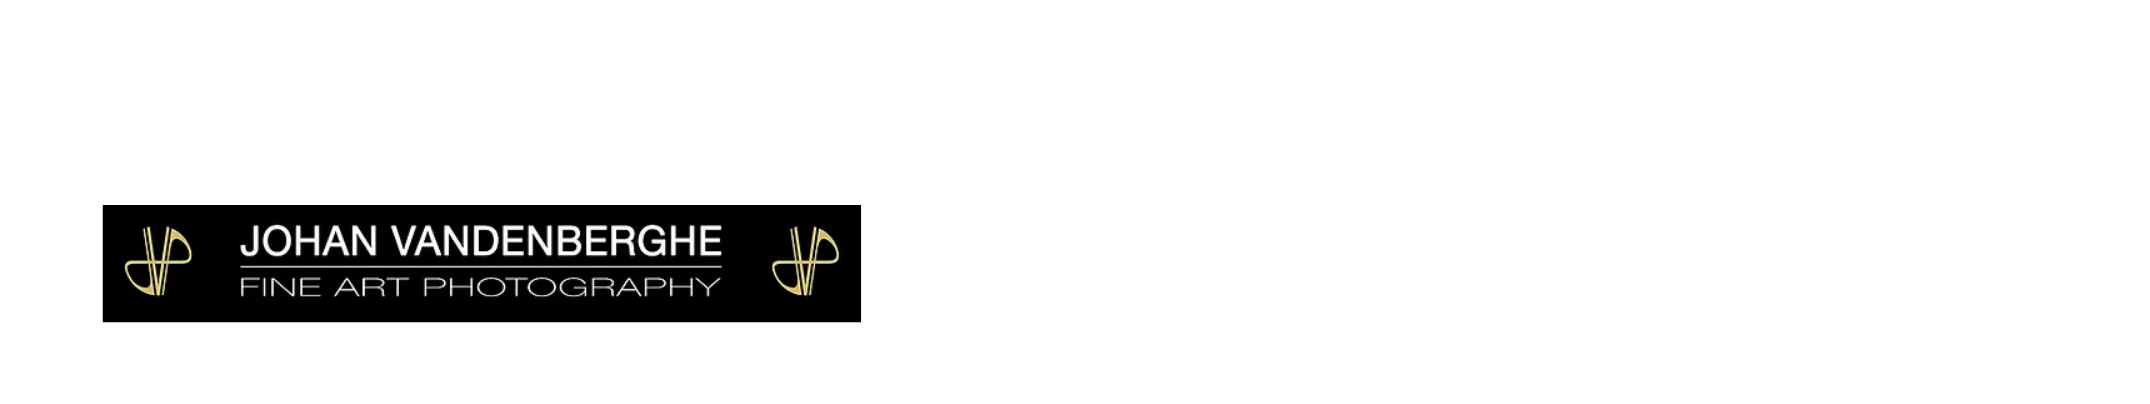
<svg xmlns="http://www.w3.org/2000/svg" width="2150" height="404" viewBox="0 0 2150 404">
  <rect width="100%" height="100%" fill="#ffffff"/>
  <image x="102" y="205" width="760" height="118" href="img1.png"/>
</svg>
